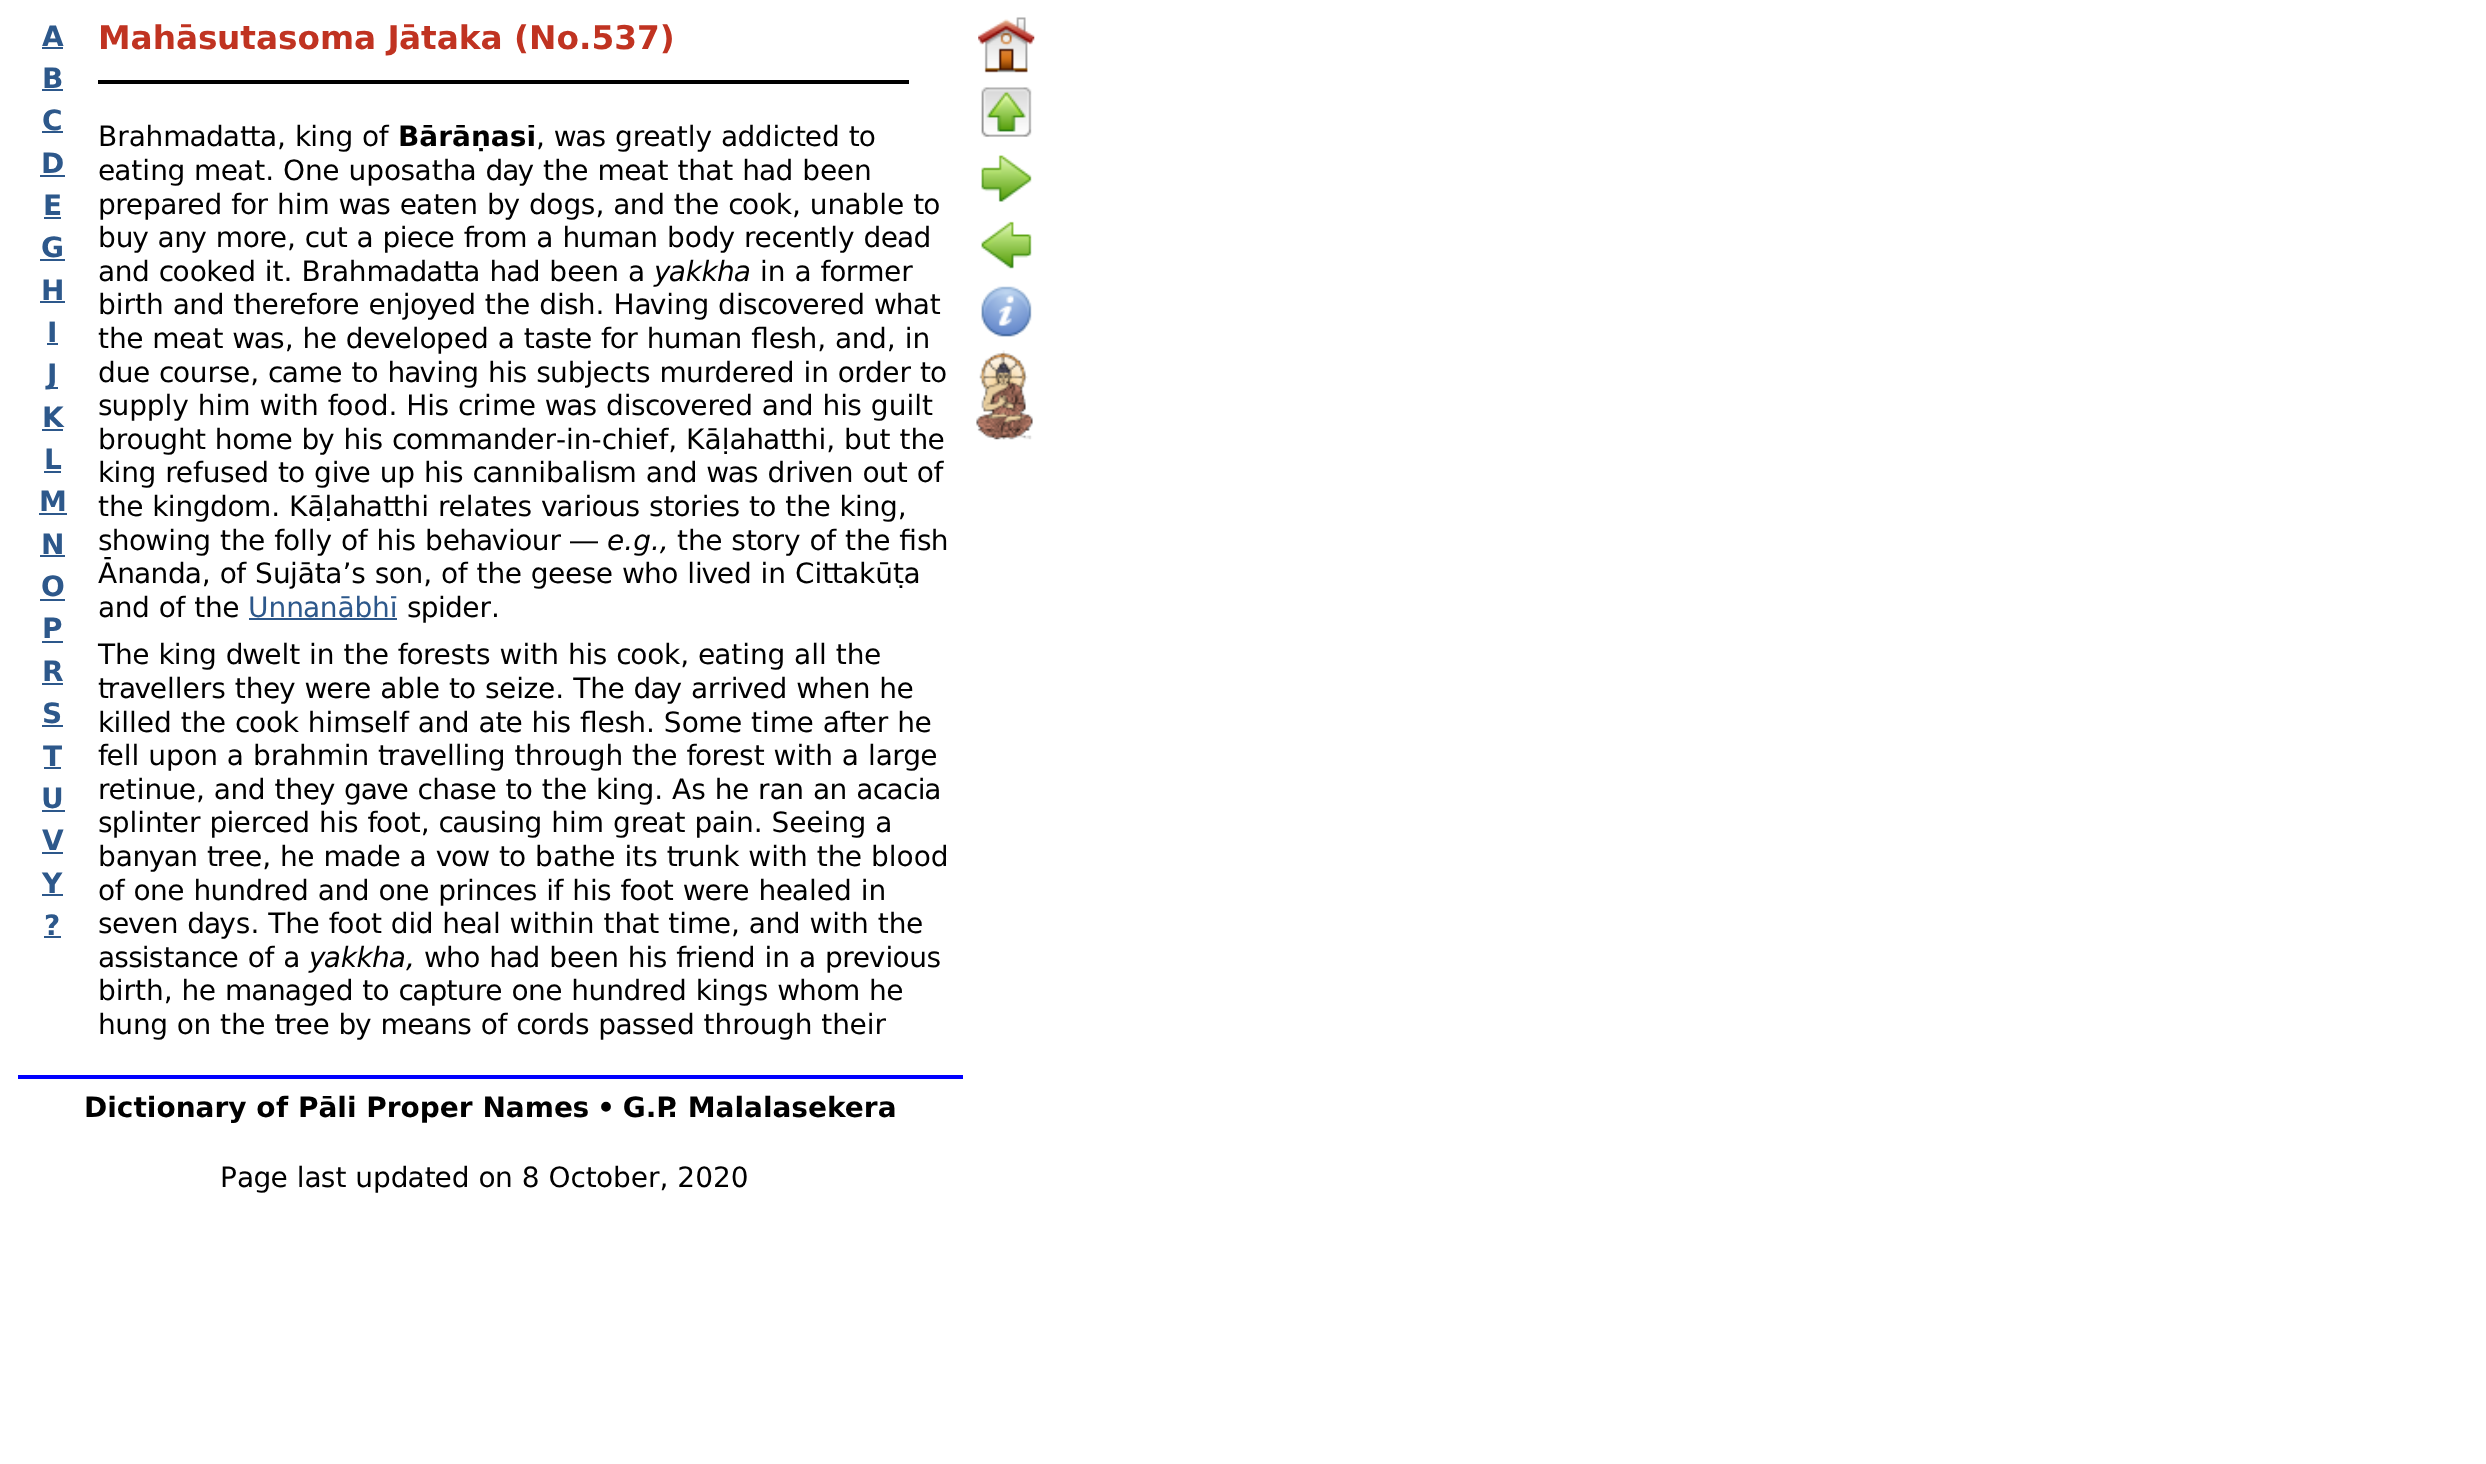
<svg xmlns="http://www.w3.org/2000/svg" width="2486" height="1464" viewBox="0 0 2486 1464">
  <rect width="100%" height="100%" fill="#ffffff"/>
  <text x="42" y="46" font-family="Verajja" font-size="28" font-weight="bold" fill="#2d588b">A</text>
  <rect x="42" y="47" width="21" height="2" fill="#2d588b"/>
  <text x="42" y="88" font-family="Verajja" font-size="28" font-weight="bold" fill="#2d588b">B</text>
  <rect x="42" y="89" width="21" height="2" fill="#2d588b"/>
  <text x="42" y="130" font-family="Verajja" font-size="28" font-weight="bold" fill="#2d588b">C</text>
  <rect x="42" y="131" width="21" height="2" fill="#2d588b"/>
  <text x="41" y="173" font-family="Verajja" font-size="28" font-weight="bold" fill="#2d588b">D</text>
  <rect x="40" y="175" width="25" height="2" fill="#2d588b"/>
  <text x="43" y="215" font-family="Verajja" font-size="28" font-weight="bold" fill="#2d588b">E</text>
  <rect x="44" y="217" width="17" height="2" fill="#2d588b"/>
  <text x="41" y="257" font-family="Verajja" font-size="28" font-weight="bold" fill="#2d588b">G</text>
  <rect x="40" y="259" width="25" height="2" fill="#2d588b"/>
  <text x="41" y="300" font-family="Verajja" font-size="28" font-weight="bold" fill="#2d588b">H</text>
  <rect x="40" y="301" width="25" height="2" fill="#2d588b"/>
  <text x="47" y="342" font-family="Verajja" font-size="28" font-weight="bold" fill="#2d588b">I</text>
  <rect x="47" y="343" width="11" height="2" fill="#2d588b"/>
  <rect x="47" y="387" width="11" height="2" fill="#2d588b"/>
  <text x="47" y="384" font-family="Verajja" font-size="28" font-weight="bold" fill="#2d588b">J</text>
  <text x="42" y="427" font-family="Verajja" font-size="28" font-weight="bold" fill="#2d588b">K</text>
  <rect x="42" y="429" width="21" height="2" fill="#2d588b"/>
  <text x="44" y="469" font-family="Verajja" font-size="28" font-weight="bold" fill="#2d588b">L</text>
  <rect x="44" y="471" width="17" height="2" fill="#2d588b"/>
  <text x="39" y="511" font-family="Verajja" font-size="28" font-weight="bold" fill="#2d588b">M</text>
  <rect x="39" y="513" width="28" height="2" fill="#2d588b"/>
  <text x="41" y="554" font-family="Verajja" font-size="28" font-weight="bold" fill="#2d588b">N</text>
  <rect x="40" y="555" width="25" height="2" fill="#2d588b"/>
  <text x="41" y="596" font-family="Verajja" font-size="28" font-weight="bold" fill="#2d588b">O</text>
  <rect x="40" y="599" width="25" height="2" fill="#2d588b"/>
  <text x="42" y="638" font-family="Verajja" font-size="28" font-weight="bold" fill="#2d588b">P</text>
  <rect x="42" y="641" width="21" height="2" fill="#2d588b"/>
  <text x="42" y="681" font-family="Verajja" font-size="28" font-weight="bold" fill="#2d588b">R</text>
  <rect x="42" y="683" width="21" height="2" fill="#2d588b"/>
  <text x="42" y="723" font-family="Verajja" font-size="28" font-weight="bold" fill="#2d588b">S</text>
  <rect x="42" y="725" width="21" height="2" fill="#2d588b"/>
  <text x="43" y="766" font-family="Verajja" font-size="28" font-weight="bold" fill="#2d588b">T</text>
  <rect x="44" y="767" width="17" height="2" fill="#2d588b"/>
  <text x="41" y="808" font-family="Verajja" font-size="28" font-weight="bold" fill="#2d588b">U</text>
  <rect x="42" y="810" width="23" height="2" fill="#2d588b"/>
  <text x="42" y="850" font-family="Verajja" font-size="28" font-weight="bold" fill="#2d588b">V</text>
  <rect x="42" y="852" width="21" height="2" fill="#2d588b"/>
  <text x="42" y="893" font-family="Verajja" font-size="28" font-weight="bold" fill="#2d588b">Y</text>
  <rect x="42" y="894" width="21" height="2" fill="#2d588b"/>
  <text x="44" y="935" font-family="Verajja" font-size="28" font-weight="bold" fill="#2d588b">?</text>
  <rect x="44" y="936" width="17" height="2" fill="#2d588b"/>
  <text x="98" y="49" font-family="Verajja" font-size="32.75" font-weight="bold" fill="#c03321">Mahāsutasoma Jātaka (No.537)</text>
  <rect x="98" y="80" width="811" height="4" fill="#000000"/>
  <text x="98" y="146" font-family="Verajja" font-size="28" fill="#000000">Brahmadatta, king of</text>
  <text x="398" y="146" font-family="Verajja" font-size="28" font-weight="bold" fill="#000000">Bārāṇasī</text>
  <text x="536" y="146" font-family="Verajja" font-size="28" fill="#000000">, was greatly addicted to</text>
  <text x="98" y="180" font-family="Verajja" font-size="28" fill="#000000">eating meat. One uposatha day the meat that had been</text>
  <text x="98" y="214" font-family="Verajja" font-size="28" fill="#000000">prepared for him was eaten by dogs, and the cook, unable to</text>
  <text x="98" y="247" font-family="Verajja" font-size="28" fill="#000000">buy any more, cut a piece from a human body recently dead</text>
  <text x="98" y="281" font-family="Verajja" font-size="28" fill="#000000">and cooked it. Brahmadatta had been a</text>
  <text x="654" y="281" font-family="Verajja" font-size="28" font-style="italic" fill="#000000">yakkha</text>
  <text x="760" y="281" font-family="Verajja" font-size="28" fill="#000000">in a former</text>
  <text x="98" y="314" font-family="Verajja" font-size="28" fill="#000000">birth and therefore enjoyed the dish. Having discovered what</text>
  <text x="98" y="348" font-family="Verajja" font-size="28" fill="#000000">the meat was, he developed a taste for human flesh, and, in</text>
  <text x="98" y="382" font-family="Verajja" font-size="28" fill="#000000">due course, came to having his subjects murdered in order to</text>
  <text x="98" y="415" font-family="Verajja" font-size="28" fill="#000000">supply him with food. His crime was discovered and his guilt</text>
  <text x="98" y="449" font-family="Verajja" font-size="28" fill="#000000">brought home by his commander-in-chief, Kāḷahatthi, but the</text>
  <text x="98" y="482" font-family="Verajja" font-size="28" fill="#000000">king refused to give up his cannibalism and was driven out of</text>
  <text x="98" y="516" font-family="Verajja" font-size="28" fill="#000000">the kingdom. Kāḷahatthi relates various stories to the king,</text>
  <text x="98" y="550" font-family="Verajja" font-size="28" fill="#000000">showing the folly of his behaviour —</text>
  <text x="607" y="550" font-family="Verajja" font-size="28" font-style="italic" fill="#000000">e.g.,</text>
  <text x="677" y="550" font-family="Verajja" font-size="28" fill="#000000">the story of the fish</text>
  <text x="98" y="583" font-family="Verajja" font-size="28" fill="#000000">Ānanda, of Sujāta’s son, of the geese who lived in Cittakūṭa</text>
  <text x="98" y="617" font-family="Verajja" font-size="28" fill="#000000">and of the</text>
  <text x="248" y="617" font-family="Verajja" font-size="28" fill="#2d588b">Unnanābhī</text>
  <rect x="249" y="618" width="148" height="2" fill="#2d588b"/>
  <text x="407" y="617" font-family="Verajja" font-size="28" fill="#000000">spider.</text>
  <text x="98" y="664" font-family="Verajja" font-size="28" fill="#000000">The king dwelt in the forests with his cook, eating all the</text>
  <text x="98" y="698" font-family="Verajja" font-size="28" fill="#000000">travellers they were able to seize. The day arrived when he</text>
  <text x="98" y="732" font-family="Verajja" font-size="28" fill="#000000">killed the cook himself and ate his flesh. Some time after he</text>
  <text x="98" y="765" font-family="Verajja" font-size="28" fill="#000000">fell upon a brahmin travelling through the forest with a large</text>
  <text x="98" y="799" font-family="Verajja" font-size="28" fill="#000000">retinue, and they gave chase to the king. As he ran an acacia</text>
  <text x="98" y="832" font-family="Verajja" font-size="28" fill="#000000">splinter pierced his foot, causing him great pain. Seeing a</text>
  <text x="98" y="866" font-family="Verajja" font-size="28" fill="#000000">banyan tree, he made a vow to bathe its trunk with the blood</text>
  <text x="98" y="900" font-family="Verajja" font-size="28" fill="#000000">of one hundred and one princes if his foot were healed in</text>
  <text x="98" y="933" font-family="Verajja" font-size="28" fill="#000000">seven days. The foot did heal within that time, and with the</text>
  <text x="98" y="967" font-family="Verajja" font-size="28" fill="#000000">assistance of a</text>
  <text x="309" y="967" font-family="Verajja" font-size="28" font-style="italic" fill="#000000">yakkha,</text>
  <text x="424" y="967" font-family="Verajja" font-size="28" fill="#000000">who had been his friend in a previous</text>
  <text x="98" y="1000" font-family="Verajja" font-size="28" fill="#000000">birth, he managed to capture one hundred kings whom he</text>
  <text x="98" y="1034" font-family="Verajja" font-size="28" fill="#000000">hung on the tree by means of cords passed through their</text>
  <image x="978" y="17" width="57" height="56" href="img1.png"/>
  <image x="981" y="87" width="51" height="50" href="img2.png"/>
  <image x="981" y="155" width="51" height="47" href="img3.png"/>
  <image x="981" y="221" width="51" height="48" href="img4.png"/>
  <image x="981" y="286" width="51" height="51" href="img5.png"/>
  <image x="976" y="350" width="57" height="90" href="img6.png"/>
  <rect x="18" y="1075" width="945" height="4" fill="#0000ff"/>
  <text x="84" y="1117" font-family="Verajja" font-size="28" font-weight="bold" fill="#000000">Dictionary of Pāli Proper Names • G.P. Malalasekera</text>
  <text x="220" y="1187" font-family="Verajja" font-size="28" fill="#000000">Page last updated on 8 October, 2020</text>
</svg>
